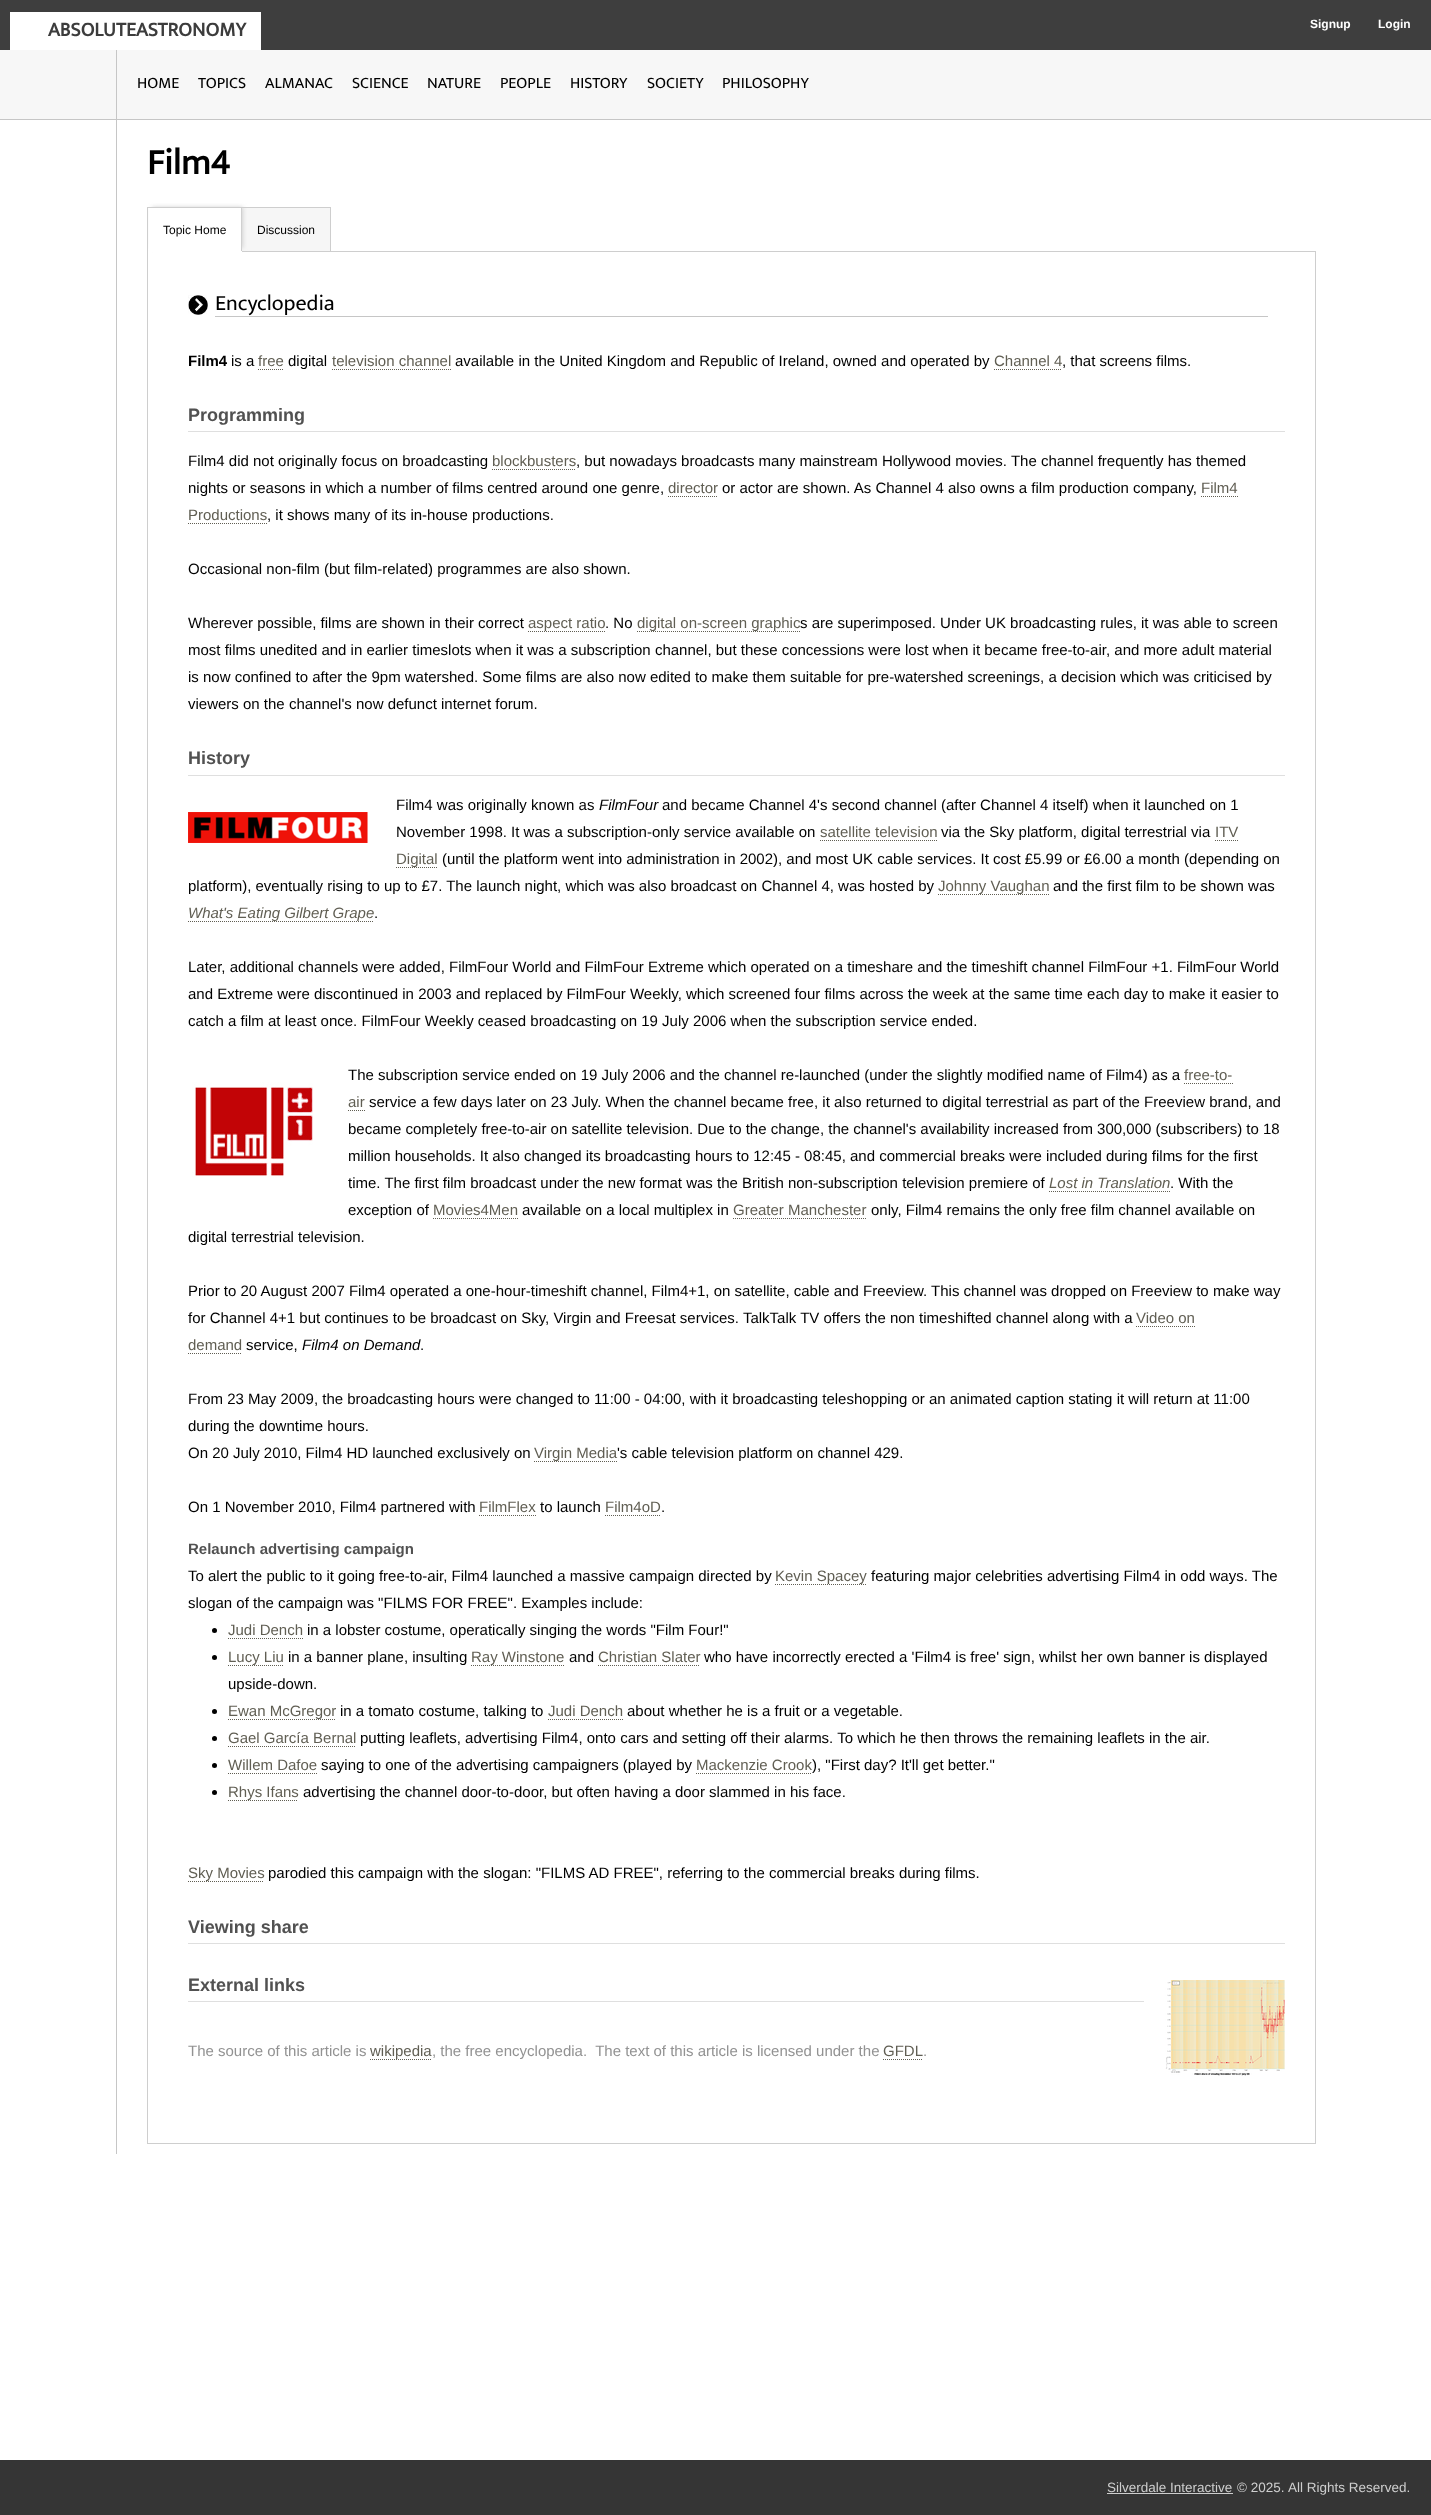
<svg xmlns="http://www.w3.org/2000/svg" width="1431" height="2515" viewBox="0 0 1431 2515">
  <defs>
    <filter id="blur1" x="-50%" y="-200%" width="200%" height="500%"><feGaussianBlur stdDeviation="2"/></filter>
  </defs>
  <rect width="100%" height="100%" fill="#ffffff"/>
  <rect x="0" y="0" width="1431" height="50" fill="#3e3e3e"/>
  <rect x="10" y="12" width="251" height="38" fill="#ffffff"/>
  <text x="48" y="36" font-family="Mukta" font-size="20" font-weight="bold" fill="#3c3c3c">ABSOLUTEASTRONOMY</text>
  <text x="1310" y="28" font-family="Liberation Sans" font-size="12" font-weight="bold" fill="#ffffff">Signup</text>
  <text x="1378" y="28" font-family="Liberation Sans" font-size="12" font-weight="bold" fill="#ffffff">Login</text>
  <rect x="0" y="50" width="1431" height="69" fill="#f7f7f7"/>
  <rect x="0" y="119" width="1431" height="1" fill="#c6c6c6"/>
  <text x="137" y="88" font-family="Mukta" font-size="16" fill="#000000">HOME</text>
  <text x="198" y="88" font-family="Mukta" font-size="16" fill="#000000">TOPICS</text>
  <text x="265" y="88" font-family="Mukta" font-size="16" fill="#000000">ALMANAC</text>
  <text x="352" y="88" font-family="Mukta" font-size="16" fill="#000000">SCIENCE</text>
  <text x="427" y="88" font-family="Mukta" font-size="16" fill="#000000">NATURE</text>
  <text x="500" y="88" font-family="Mukta" font-size="16" fill="#000000">PEOPLE</text>
  <text x="570" y="88" font-family="Mukta" font-size="16" fill="#000000">HISTORY</text>
  <text x="647" y="88" font-family="Mukta" font-size="16" fill="#000000">SOCIETY</text>
  <text x="722" y="88" font-family="Mukta" font-size="16" fill="#000000">PHILOSOPHY</text>
  <rect x="116" y="50" width="1" height="2104" fill="#c6c6c6"/>
  <text x="147" y="174" font-family="Mukta" font-size="36" font-weight="bold" fill="#000000">Film4</text>
  <rect x="147.5" y="251.5" width="1168" height="1892" fill="none" stroke="#cecece"/>
  <rect x="241.5" y="207.5" width="89" height="44" fill="#f6f6f6" stroke="#cecece"/>
  <rect x="152" y="207" width="91" height="41" fill="#d1d1d1" filter="url(#blur1)"/>
  <rect x="149" y="208" width="92" height="43" fill="#ffffff"/>
  <rect x="147" y="207" width="95" height="1" fill="#cecece"/>
  <rect x="147" y="251" width="95" height="1" fill="#ffffff"/>
  <rect x="147" y="207" width="1" height="45" fill="#cecece"/>
  <text x="163" y="234" font-family="Liberation Sans" font-size="12" fill="#000000">Topic Home</text>
  <text x="257" y="234" font-family="Liberation Sans" font-size="12" fill="#000000">Discussion</text>
  <image x="188" y="295" width="20" height="20" href="img1.png"/>
  <rect x="215" y="316" width="1053" height="1" fill="#c6c6c6"/>
  <text x="215" y="310" font-family="Mukta" font-size="22" fill="#000000">Encyclopedia</text>
  <text x="188" y="366" font-family="Liberation Sans" font-size="15" font-weight="bold" fill="#000000">Film4</text>
  <text x="231" y="366" font-family="Liberation Sans" font-size="15" fill="#000000">is a</text>
  <text x="258" y="366" font-family="Liberation Sans" font-size="15" fill="#605e53">free</text>
  <path d="M258 369.5H284" fill="none" stroke="#605e53" stroke-dasharray="1 1"/>
  <text x="288" y="366" font-family="Liberation Sans" font-size="15" fill="#000000">digital</text>
  <text x="332" y="366" font-family="Liberation Sans" font-size="15" fill="#605e53">television channel</text>
  <path d="M332 369.5H451" fill="none" stroke="#605e53" stroke-dasharray="1 1"/>
  <text x="455" y="366" font-family="Liberation Sans" font-size="15" fill="#000000">available in the United Kingdom and Republic of Ireland, owned and operated by</text>
  <text x="994" y="366" font-family="Liberation Sans" font-size="15" fill="#605e53">Channel 4</text>
  <path d="M994 369.5H1062" fill="none" stroke="#605e53" stroke-dasharray="1 1"/>
  <text x="1062" y="366" font-family="Liberation Sans" font-size="15" fill="#000000">, that screens films.</text>
  <rect x="188" y="431" width="1097" height="1" fill="#dfdfdf"/>
  <text x="188" y="421" font-family="Liberation Sans" font-size="18" font-weight="bold" fill="#515151">Programming</text>
  <text x="188" y="466" font-family="Liberation Sans" font-size="15" fill="#000000">Film4 did not originally focus on broadcasting</text>
  <text x="492" y="466" font-family="Liberation Sans" font-size="15" fill="#605e53">blockbusters</text>
  <path d="M492 469.5H576" fill="none" stroke="#605e53" stroke-dasharray="1 1"/>
  <text x="576" y="466" font-family="Liberation Sans" font-size="15" fill="#000000">, but nowadays broadcasts many mainstream Hollywood movies. The channel frequently has themed</text>
  <text x="188" y="493" font-family="Liberation Sans" font-size="15" fill="#000000">nights or seasons in which a number of films centred around one genre,</text>
  <text x="668" y="493" font-family="Liberation Sans" font-size="15" fill="#605e53">director</text>
  <path d="M668 496.5H718" fill="none" stroke="#605e53" stroke-dasharray="1 1"/>
  <text x="722" y="493" font-family="Liberation Sans" font-size="15" fill="#000000">or actor are shown. As Channel 4 also owns a film production company,</text>
  <text x="1201" y="493" font-family="Liberation Sans" font-size="15" fill="#605e53">Film4</text>
  <path d="M1201 496.5H1238" fill="none" stroke="#605e53" stroke-dasharray="1 1"/>
  <text x="188" y="520" font-family="Liberation Sans" font-size="15" fill="#605e53">Productions</text>
  <path d="M188 523.5H267" fill="none" stroke="#605e53" stroke-dasharray="1 1"/>
  <text x="267" y="520" font-family="Liberation Sans" font-size="15" fill="#000000">, it shows many of its in-house productions.</text>
  <text x="188" y="574" font-family="Liberation Sans" font-size="15" fill="#000000">Occasional non-film (but film-related) programmes are also shown.</text>
  <text x="188" y="628" font-family="Liberation Sans" font-size="15" fill="#000000">Wherever possible, films are shown in their correct</text>
  <path d="M528 631.5H605" fill="none" stroke="#605e53" stroke-dasharray="1 1"/>
  <text x="528" y="628" font-family="Liberation Sans" font-size="15" fill="#605e53">aspect ratio</text>
  <text x="605" y="628" font-family="Liberation Sans" font-size="15" fill="#000000">. No</text>
  <path d="M637 631.5H800" fill="none" stroke="#605e53" stroke-dasharray="1 1"/>
  <text x="637" y="628" font-family="Liberation Sans" font-size="15" fill="#605e53">digital on-screen graphic</text>
  <text x="800" y="628" font-family="Liberation Sans" font-size="15" fill="#000000">s are superimposed. Under UK broadcasting rules, it was able to screen</text>
  <text x="188" y="655" font-family="Liberation Sans" font-size="15" fill="#000000">most films unedited and in earlier timeslots when it was a subscription channel, but these concessions were lost when it became free-to-air, and more adult material</text>
  <text x="188" y="682" font-family="Liberation Sans" font-size="15" fill="#000000">is now confined to after the 9pm watershed. Some films are also now edited to make them suitable for pre-watershed screenings, a decision which was criticised by</text>
  <text x="188" y="709" font-family="Liberation Sans" font-size="15" fill="#000000">viewers on the channel's now defunct internet forum.</text>
  <rect x="188" y="775" width="1097" height="1" fill="#dfdfdf"/>
  <text x="188" y="764" font-family="Liberation Sans" font-size="18" font-weight="bold" fill="#515151">History</text>
  <text x="396" y="810" font-family="Liberation Sans" font-size="15" fill="#000000">Film4 was originally known as</text>
  <text x="599" y="810" font-family="Liberation Sans" font-size="15" font-style="italic" fill="#000000">FilmFour</text>
  <text x="662" y="810" font-family="Liberation Sans" font-size="15" fill="#000000">and became Channel 4's second channel (after Channel 4 itself) when it launched on 1</text>
  <image x="188" y="812" width="180" height="31" href="img2.png"/>
  <text x="396" y="837" font-family="Liberation Sans" font-size="15" fill="#000000">November 1998. It was a subscription-only service available on</text>
  <text x="820" y="837" font-family="Liberation Sans" font-size="15" fill="#605e53">satellite television</text>
  <path d="M820 840.5H937" fill="none" stroke="#605e53" stroke-dasharray="1 1"/>
  <text x="941" y="837" font-family="Liberation Sans" font-size="15" fill="#000000">via the Sky platform, digital terrestrial via</text>
  <text x="1215" y="837" font-family="Liberation Sans" font-size="15" fill="#605e53">ITV</text>
  <path d="M1215 840.5H1238" fill="none" stroke="#605e53" stroke-dasharray="1 1"/>
  <path d="M396 867.5H438" fill="none" stroke="#605e53" stroke-dasharray="1 1"/>
  <text x="396" y="864" font-family="Liberation Sans" font-size="15" fill="#605e53">Digital</text>
  <text x="442" y="864" font-family="Liberation Sans" font-size="15" fill="#000000">(until the platform went into administration in 2002), and most UK cable services. It cost £5.99 or £6.00 a month (depending on</text>
  <text x="188" y="891" font-family="Liberation Sans" font-size="15" fill="#000000">platform), eventually rising to up to £7. The launch night, which was also broadcast on Channel 4, was hosted by</text>
  <path d="M938 894.5H1049" fill="none" stroke="#605e53" stroke-dasharray="1 1"/>
  <text x="938" y="891" font-family="Liberation Sans" font-size="15" fill="#605e53">Johnny Vaughan</text>
  <text x="1053" y="891" font-family="Liberation Sans" font-size="15" fill="#000000">and the first film to be shown was</text>
  <path d="M188 921.5H374" fill="none" stroke="#605e53" stroke-dasharray="1 1"/>
  <text x="188" y="918" font-family="Liberation Sans" font-size="15" font-style="italic" fill="#605e53">What's Eating Gilbert Grape</text>
  <text x="374" y="918" font-family="Liberation Sans" font-size="15" fill="#000000">.</text>
  <text x="188" y="972" font-family="Liberation Sans" font-size="15" fill="#000000">Later, additional channels were added, FilmFour World and FilmFour Extreme which operated on a timeshare and the timeshift channel FilmFour +1. FilmFour World</text>
  <text x="188" y="999" font-family="Liberation Sans" font-size="15" fill="#000000">and Extreme were discontinued in 2003 and replaced by FilmFour Weekly, which screened four films across the week at the same time each day to make it easier to</text>
  <text x="188" y="1026" font-family="Liberation Sans" font-size="15" fill="#000000">catch a film at least once. FilmFour Weekly ceased broadcasting on 19 July 2006 when the subscription service ended.</text>
  <text x="348" y="1080" font-family="Liberation Sans" font-size="15" fill="#000000">The subscription service ended on 19 July 2006 and the channel re-launched (under the slightly modified name of Film4) as a</text>
  <text x="1184" y="1080" font-family="Liberation Sans" font-size="15" fill="#605e53">free-to-</text>
  <path d="M1184 1083.5H1233" fill="none" stroke="#605e53" stroke-dasharray="1 1"/>
  <image x="192" y="1082" width="121" height="96" href="img3.png"/>
  <text x="348" y="1107" font-family="Liberation Sans" font-size="15" fill="#605e53">air</text>
  <path d="M348 1110.5H365" fill="none" stroke="#605e53" stroke-dasharray="1 1"/>
  <text x="369" y="1107" font-family="Liberation Sans" font-size="15" fill="#000000">service a few days later on 23 July. When the channel became free, it also returned to digital terrestrial as part of the Freeview brand, and</text>
  <text x="348" y="1134" font-family="Liberation Sans" font-size="15" fill="#000000">became completely free-to-air on satellite television. Due to the change, the channel's availability increased from 300,000 (subscribers) to 18</text>
  <text x="348" y="1161" font-family="Liberation Sans" font-size="15" fill="#000000">million households. It also changed its broadcasting hours to 12:45 - 08:45, and commercial breaks were included during films for the first</text>
  <text x="348" y="1188" font-family="Liberation Sans" font-size="15" fill="#000000">time. The first film broadcast under the new format was the British non-subscription television premiere of</text>
  <text x="1049" y="1188" font-family="Liberation Sans" font-size="15" font-style="italic" fill="#605e53">Lost in Translation</text>
  <path d="M1049 1191.5H1170" fill="none" stroke="#605e53" stroke-dasharray="1 1"/>
  <text x="1170" y="1188" font-family="Liberation Sans" font-size="15" fill="#000000">. With the</text>
  <text x="348" y="1215" font-family="Liberation Sans" font-size="15" fill="#000000">exception of</text>
  <text x="433" y="1215" font-family="Liberation Sans" font-size="15" fill="#605e53">Movies4Men</text>
  <path d="M433 1218.5H518" fill="none" stroke="#605e53" stroke-dasharray="1 1"/>
  <text x="522" y="1215" font-family="Liberation Sans" font-size="15" fill="#000000">available on a local multiplex in</text>
  <text x="733" y="1215" font-family="Liberation Sans" font-size="15" fill="#605e53">Greater Manchester</text>
  <path d="M733 1218.5H867" fill="none" stroke="#605e53" stroke-dasharray="1 1"/>
  <text x="871" y="1215" font-family="Liberation Sans" font-size="15" fill="#000000">only, Film4 remains the only free film channel available on</text>
  <text x="188" y="1242" font-family="Liberation Sans" font-size="15" fill="#000000">digital terrestrial television.</text>
  <text x="188" y="1296" font-family="Liberation Sans" font-size="15" fill="#000000">Prior to 20 August 2007 Film4 operated a one-hour-timeshift channel, Film4+1, on satellite, cable and Freeview. This channel was dropped on Freeview to make way</text>
  <text x="188" y="1323" font-family="Liberation Sans" font-size="15" fill="#000000">for Channel 4+1 but continues to be broadcast on Sky, Virgin and Freesat services. TalkTalk TV offers the non timeshifted channel along with a</text>
  <text x="1136" y="1323" font-family="Liberation Sans" font-size="15" fill="#605e53">Video on</text>
  <path d="M1136 1326.5H1195" fill="none" stroke="#605e53" stroke-dasharray="1 1"/>
  <text x="188" y="1350" font-family="Liberation Sans" font-size="15" fill="#605e53">demand</text>
  <path d="M188 1353.5H242" fill="none" stroke="#605e53" stroke-dasharray="1 1"/>
  <text x="246" y="1350" font-family="Liberation Sans" font-size="15" fill="#000000">service,</text>
  <text x="302" y="1350" font-family="Liberation Sans" font-size="15" font-style="italic" fill="#000000">Film4 on Demand</text>
  <text x="420" y="1350" font-family="Liberation Sans" font-size="15" fill="#000000">.</text>
  <text x="188" y="1404" font-family="Liberation Sans" font-size="15" fill="#000000">From 23 May 2009, the broadcasting hours were changed to 11:00 - 04:00, with it broadcasting teleshopping or an animated caption stating it will return at 11:00</text>
  <text x="188" y="1431" font-family="Liberation Sans" font-size="15" fill="#000000">during the downtime hours.</text>
  <text x="188" y="1458" font-family="Liberation Sans" font-size="15" fill="#000000">On 20 July 2010, Film4 HD launched exclusively on</text>
  <path d="M534 1461.5H617" fill="none" stroke="#605e53" stroke-dasharray="1 1"/>
  <text x="534" y="1458" font-family="Liberation Sans" font-size="15" fill="#605e53">Virgin Media</text>
  <text x="617" y="1458" font-family="Liberation Sans" font-size="15" fill="#000000">'s cable television platform on channel 429.</text>
  <text x="188" y="1512" font-family="Liberation Sans" font-size="15" fill="#000000">On 1 November 2010, Film4 partnered with</text>
  <text x="479" y="1512" font-family="Liberation Sans" font-size="15" fill="#605e53">FilmFlex</text>
  <path d="M479 1515.5H536" fill="none" stroke="#605e53" stroke-dasharray="1 1"/>
  <text x="540" y="1512" font-family="Liberation Sans" font-size="15" fill="#000000">to launch</text>
  <text x="605" y="1512" font-family="Liberation Sans" font-size="15" fill="#605e53">Film4oD</text>
  <path d="M605 1515.5H661" fill="none" stroke="#605e53" stroke-dasharray="1 1"/>
  <text x="661" y="1512" font-family="Liberation Sans" font-size="15" fill="#000000">.</text>
  <text x="188" y="1554" font-family="Liberation Sans" font-size="15" font-weight="bold" fill="#515151">Relaunch advertising campaign</text>
  <text x="188" y="1581" font-family="Liberation Sans" font-size="15" fill="#000000">To alert the public to it going free-to-air, Film4 launched a massive campaign directed by</text>
  <path d="M775 1584.5H867" fill="none" stroke="#605e53" stroke-dasharray="1 1"/>
  <text x="775" y="1581" font-family="Liberation Sans" font-size="15" fill="#605e53">Kevin Spacey</text>
  <text x="871" y="1581" font-family="Liberation Sans" font-size="15" fill="#000000">featuring major celebrities advertising Film4 in odd ways. The</text>
  <text x="188" y="1608" font-family="Liberation Sans" font-size="15" fill="#000000">slogan of the campaign was "FILMS FOR FREE". Examples include:</text>
  <circle cx="214.5" cy="1630.5" r="2.5" fill="#000000"/>
  <text x="228" y="1635" font-family="Liberation Sans" font-size="15" fill="#605e53">Judi Dench</text>
  <path d="M228 1638.5H303" fill="none" stroke="#605e53" stroke-dasharray="1 1"/>
  <text x="307" y="1635" font-family="Liberation Sans" font-size="15" fill="#000000">in a lobster costume, operatically singing the words "Film Four!"</text>
  <circle cx="214.5" cy="1657.5" r="2.5" fill="#000000"/>
  <path d="M228 1665.5H283" fill="none" stroke="#605e53" stroke-dasharray="1 1"/>
  <text x="228" y="1662" font-family="Liberation Sans" font-size="15" fill="#605e53">Lucy Liu</text>
  <text x="288" y="1662" font-family="Liberation Sans" font-size="15" fill="#000000">in a banner plane, insulting</text>
  <path d="M471 1665.5H564" fill="none" stroke="#605e53" stroke-dasharray="1 1"/>
  <text x="471" y="1662" font-family="Liberation Sans" font-size="15" fill="#605e53">Ray Winstone</text>
  <text x="569" y="1662" font-family="Liberation Sans" font-size="15" fill="#000000">and</text>
  <text x="598" y="1662" font-family="Liberation Sans" font-size="15" fill="#605e53">Christian Slater</text>
  <path d="M598 1665.5H700" fill="none" stroke="#605e53" stroke-dasharray="1 1"/>
  <text x="704" y="1662" font-family="Liberation Sans" font-size="15" fill="#000000">who have incorrectly erected a 'Film4 is free' sign, whilst her own banner is displayed</text>
  <text x="228" y="1689" font-family="Liberation Sans" font-size="15" fill="#000000">upside-down.</text>
  <circle cx="214.5" cy="1711.5" r="2.5" fill="#000000"/>
  <path d="M228 1719.5H336" fill="none" stroke="#605e53" stroke-dasharray="1 1"/>
  <text x="228" y="1716" font-family="Liberation Sans" font-size="15" fill="#605e53">Ewan McGregor</text>
  <text x="340" y="1716" font-family="Liberation Sans" font-size="15" fill="#000000">in a tomato costume, talking to</text>
  <text x="548" y="1716" font-family="Liberation Sans" font-size="15" fill="#605e53">Judi Dench</text>
  <path d="M548 1719.5H623" fill="none" stroke="#605e53" stroke-dasharray="1 1"/>
  <text x="627" y="1716" font-family="Liberation Sans" font-size="15" fill="#000000">about whether he is a fruit or a vegetable.</text>
  <circle cx="214.5" cy="1738.5" r="2.5" fill="#000000"/>
  <text x="228" y="1743" font-family="Liberation Sans" font-size="15" fill="#605e53">Gael García Bernal</text>
  <path d="M228 1746.5H356" fill="none" stroke="#605e53" stroke-dasharray="1 1"/>
  <text x="360" y="1743" font-family="Liberation Sans" font-size="15" fill="#000000">putting leaflets, advertising Film4, onto cars and setting off their alarms. To which he then throws the remaining leaflets in the air.</text>
  <circle cx="214.5" cy="1765.5" r="2.5" fill="#000000"/>
  <text x="228" y="1770" font-family="Liberation Sans" font-size="15" fill="#605e53">Willem Dafoe</text>
  <path d="M228 1773.5H317" fill="none" stroke="#605e53" stroke-dasharray="1 1"/>
  <text x="321" y="1770" font-family="Liberation Sans" font-size="15" fill="#000000">saying to one of the advertising campaigners (played by</text>
  <text x="696" y="1770" font-family="Liberation Sans" font-size="15" fill="#605e53">Mackenzie Crook</text>
  <path d="M696 1773.5H812" fill="none" stroke="#605e53" stroke-dasharray="1 1"/>
  <text x="812" y="1770" font-family="Liberation Sans" font-size="15" fill="#000000">), "First day? It'll get better."</text>
  <circle cx="214.5" cy="1792.5" r="2.5" fill="#000000"/>
  <path d="M228 1800.5H298" fill="none" stroke="#605e53" stroke-dasharray="1 1"/>
  <text x="228" y="1797" font-family="Liberation Sans" font-size="15" fill="#605e53">Rhys Ifans</text>
  <text x="303" y="1797" font-family="Liberation Sans" font-size="15" fill="#000000">advertising the channel door-to-door, but often having a door slammed in his face.</text>
  <path d="M188 1881.5H264" fill="none" stroke="#605e53" stroke-dasharray="1 1"/>
  <text x="188" y="1878" font-family="Liberation Sans" font-size="15" fill="#605e53">Sky Movies</text>
  <text x="268" y="1878" font-family="Liberation Sans" font-size="15" fill="#000000">parodied this campaign with the slogan: "FILMS AD FREE", referring to the commercial breaks during films.</text>
  <rect x="188" y="1943" width="1097" height="1" fill="#dfdfdf"/>
  <text x="188" y="1933" font-family="Liberation Sans" font-size="18" font-weight="bold" fill="#515151">Viewing share</text>
  <rect x="188" y="2001" width="956" height="1" fill="#dfdfdf"/>
  <text x="188" y="1991" font-family="Liberation Sans" font-size="18" font-weight="bold" fill="#515151">External links</text>
  <image x="1165" y="1980" width="120" height="96" href="img4.png"/>
  <text x="188" y="2056" font-family="Liberation Sans" font-size="15" fill="#929292">The source of this article is</text>
  <path d="M370 2059.5H432" fill="none" stroke="#605e53" stroke-dasharray="1 1"/>
  <text x="370" y="2056" font-family="Liberation Sans" font-size="15" fill="#605e53">wikipedia</text>
  <text x="432" y="2056" font-family="Liberation Sans" font-size="15" fill="#929292" xml:space="preserve">, the free encyclopedia.  The text of this article is licensed under the</text>
  <text x="883" y="2056" font-family="Liberation Sans" font-size="15" fill="#605e53">GFDL</text>
  <path d="M883 2059.5H923" fill="none" stroke="#605e53" stroke-dasharray="1 1"/>
  <text x="923" y="2056" font-family="Liberation Sans" font-size="15" fill="#929292">.</text>
  <rect x="0" y="2460" width="1431" height="55" fill="#353535"/>
  <text x="1107" y="2492" font-family="Liberation Sans" font-size="13.5" fill="#cecece">Silverdale Interactive</text>
  <rect x="1107" y="2493" width="126" height="1" fill="#cecece"/>
  <text x="1237" y="2492" font-family="Liberation Sans" font-size="13.5" fill="#cecece">© 2025.</text>
  <text x="1288" y="2492" font-family="Liberation Sans" font-size="13.5" fill="#cecece">All Rights Reserved.</text>
</svg>
